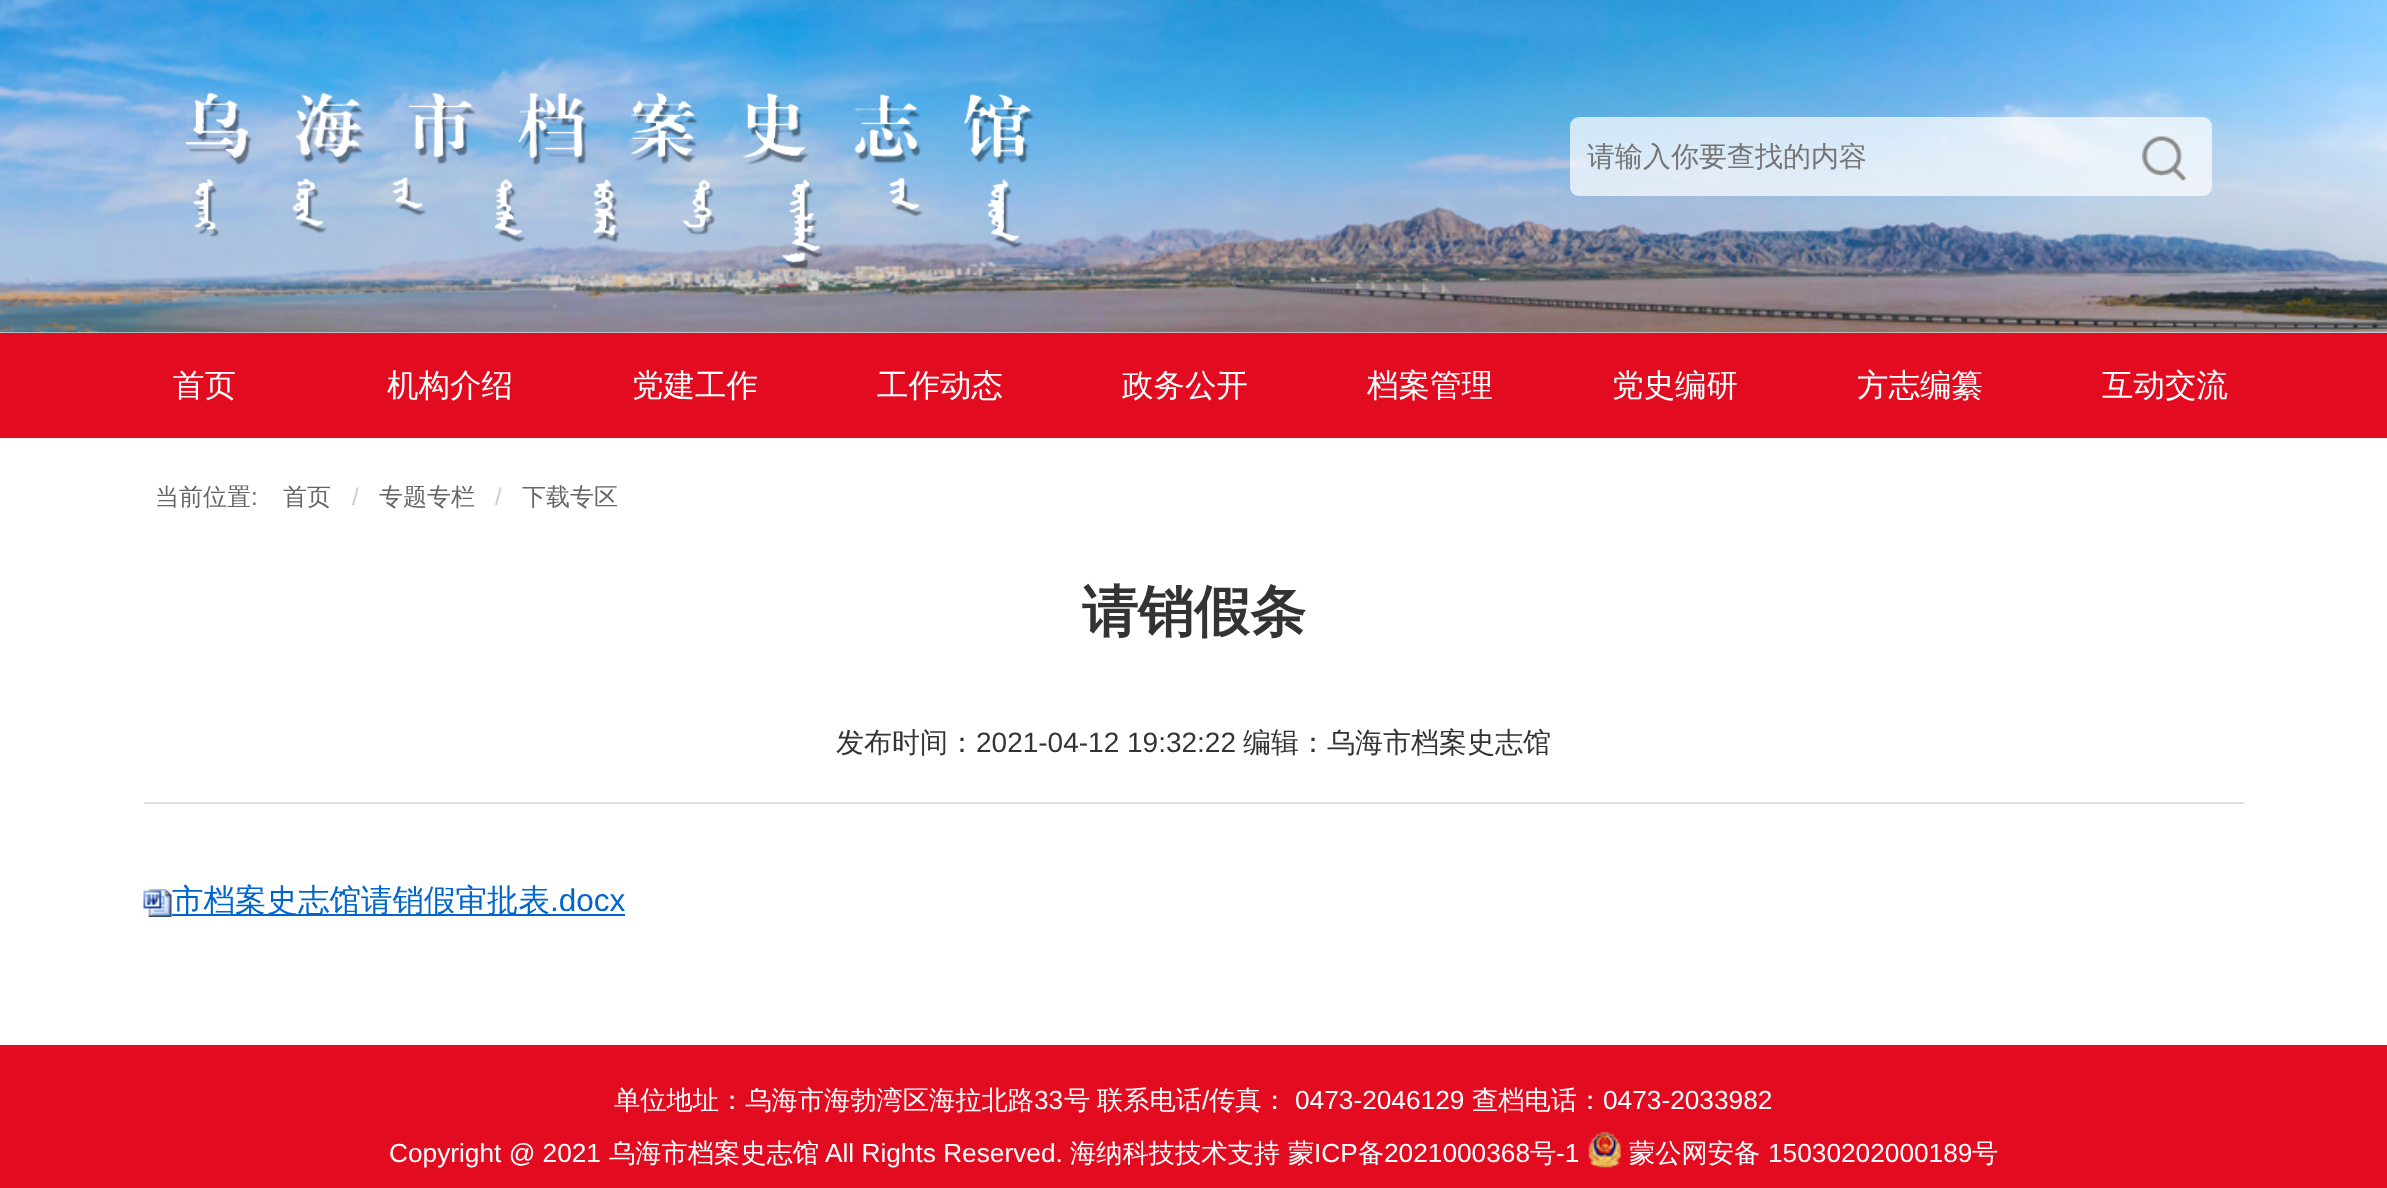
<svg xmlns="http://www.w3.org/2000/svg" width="2387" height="1188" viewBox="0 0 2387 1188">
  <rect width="100%" height="100%" fill="#ffffff"/>
  <image x="0" y="0" width="2387" height="333" href="img1.png"/>
  <image x="185" y="92" width="849" height="176" href="img2.png"/>
  <rect x="1570" y="117" width="642" height="79" rx="9" fill="#ffffff" fill-opacity="0.7"/>
  <text x="1587" y="166" font-family="WenQuanYi Zen Hei" font-size="28" font-weight="500" fill="#757575">请输入你要查找的内容</text>
  <image x="2142" y="136" width="44" height="45" href="img3.png"/>
  <rect x="0" y="333" width="2387" height="105" fill="#e30b20"/>
  <text x="173" y="396" font-family="WenQuanYi Zen Hei" font-size="31.5" font-weight="500" fill="#ffffff">首页</text>
  <text x="387" y="396" font-family="WenQuanYi Zen Hei" font-size="31.5" font-weight="500" fill="#ffffff">机构介绍</text>
  <text x="632" y="396" font-family="WenQuanYi Zen Hei" font-size="31.5" font-weight="500" fill="#ffffff">党建工作</text>
  <text x="877" y="396" font-family="WenQuanYi Zen Hei" font-size="31.5" font-weight="500" fill="#ffffff">工作动态</text>
  <text x="1122" y="396" font-family="WenQuanYi Zen Hei" font-size="31.5" font-weight="500" fill="#ffffff">政务公开</text>
  <text x="1367" y="396" font-family="WenQuanYi Zen Hei" font-size="31.5" font-weight="500" fill="#ffffff">档案管理</text>
  <text x="1612" y="396" font-family="WenQuanYi Zen Hei" font-size="31.5" font-weight="500" fill="#ffffff">党史编研</text>
  <text x="1857" y="396" font-family="WenQuanYi Zen Hei" font-size="31.5" font-weight="500" fill="#ffffff">方志编纂</text>
  <text x="2102" y="396" font-family="WenQuanYi Zen Hei" font-size="31.5" font-weight="500" fill="#ffffff">互动交流</text>
  <text x="155" y="505" font-family="WenQuanYi Zen Hei" font-size="24" font-weight="500" fill="#666666">当前位置</text>
  <text x="251" y="505" font-family="Liberation Sans" font-size="24" fill="#666666">:</text>
  <text x="283" y="505" font-family="WenQuanYi Zen Hei" font-size="24" font-weight="500" fill="#666666">首页</text>
  <text x="352" y="505" font-family="Liberation Sans" font-size="24" fill="#cccccc">/</text>
  <text x="379" y="505" font-family="WenQuanYi Zen Hei" font-size="24" font-weight="500" fill="#666666">专题专栏</text>
  <text x="495" y="505" font-family="Liberation Sans" font-size="24" fill="#cccccc">/</text>
  <text x="522" y="505" font-family="WenQuanYi Zen Hei" font-size="24" font-weight="500" fill="#666666">下载专区</text>
  <text x="1082" y="631" font-family="WenQuanYi Zen Hei" font-size="56" font-weight="bold" fill="#333333">请销假条</text>
  <rect x="144" y="802" width="2100" height="2" fill="#dedede"/>
  <text x="836" y="752" font-family="WenQuanYi Zen Hei" font-size="28" font-weight="500" fill="#333333">发布时间：</text>
  <text x="976" y="752" font-family="Liberation Sans" font-size="28" fill="#333333">2021-04-12 19:32:22</text>
  <text x="1243" y="752" font-family="WenQuanYi Zen Hei" font-size="28" font-weight="500" fill="#333333">编辑：乌海市档案史志馆</text>
  <image x="143" y="889" width="29" height="28" href="img4.png"/>
  <rect x="172" y="914" width="453" height="2" fill="#0066cc"/>
  <text x="172" y="911" font-family="WenQuanYi Zen Hei" font-size="31.5" font-weight="500" fill="#0066cc">市档案史志馆请销假审批表</text>
  <text x="550" y="911" font-family="Liberation Sans" font-size="31.5" fill="#0066cc">.docx</text>
  <rect x="0" y="1045" width="2387" height="143" fill="#e30b20"/>
  <text x="614" y="1109" font-family="WenQuanYi Zen Hei" font-size="26.25" font-weight="500" fill="#ffffff">单位地址：乌海市海勃湾区海拉北路</text>
  <text x="1034" y="1109" font-family="Liberation Sans" font-size="26.25" fill="#ffffff">33</text>
  <text x="1064" y="1109" font-family="WenQuanYi Zen Hei" font-size="26.25" font-weight="500" fill="#ffffff">号</text>
  <text x="1097" y="1109" font-family="WenQuanYi Zen Hei" font-size="26.25" font-weight="500" fill="#ffffff">联系电话</text>
  <text x="1202" y="1109" font-family="Liberation Sans" font-size="26.25" fill="#ffffff">/</text>
  <text x="1209" y="1109" font-family="WenQuanYi Zen Hei" font-size="26.25" font-weight="500" fill="#ffffff">传真：</text>
  <text x="1295" y="1109" font-family="Liberation Sans" font-size="26.25" fill="#ffffff">0473-2046129</text>
  <text x="1472" y="1109" font-family="WenQuanYi Zen Hei" font-size="26.25" font-weight="500" fill="#ffffff">查档电话：</text>
  <text x="1603" y="1109" font-family="Liberation Sans" font-size="26.25" fill="#ffffff">0473-2033982</text>
  <text x="389" y="1162" font-family="Liberation Sans" font-size="26.25" fill="#ffffff">Copyright @ 2021</text>
  <text x="609" y="1162" font-family="WenQuanYi Zen Hei" font-size="26.25" font-weight="500" fill="#ffffff">乌海市档案史志馆</text>
  <text x="825" y="1162" font-family="Liberation Sans" font-size="26.25" fill="#ffffff">All Rights Reserved.</text>
  <text x="1070" y="1162" font-family="WenQuanYi Zen Hei" font-size="26.25" font-weight="500" fill="#ffffff">海纳科技技术支持</text>
  <text x="1288" y="1162" font-family="WenQuanYi Zen Hei" font-size="26.25" font-weight="500" fill="#ffffff">蒙</text>
  <text x="1314" y="1162" font-family="Liberation Sans" font-size="26.25" fill="#ffffff">ICP</text>
  <text x="1358" y="1162" font-family="WenQuanYi Zen Hei" font-size="26.25" font-weight="500" fill="#ffffff">备</text>
  <text x="1384" y="1162" font-family="Liberation Sans" font-size="26.25" fill="#ffffff">2021000368</text>
  <text x="1530" y="1162" font-family="WenQuanYi Zen Hei" font-size="26.25" font-weight="500" fill="#ffffff">号</text>
  <text x="1556" y="1162" font-family="Liberation Sans" font-size="26.25" fill="#ffffff">-1</text>
  <image x="1588" y="1132" width="33" height="36" href="img5.png"/>
  <text x="1629" y="1162" font-family="WenQuanYi Zen Hei" font-size="26.25" font-weight="500" fill="#ffffff">蒙公网安备</text>
  <text x="1768" y="1162" font-family="Liberation Sans" font-size="26.25" fill="#ffffff">15030202000189</text>
  <text x="1972" y="1162" font-family="WenQuanYi Zen Hei" font-size="26.25" font-weight="500" fill="#ffffff">号</text>
</svg>
